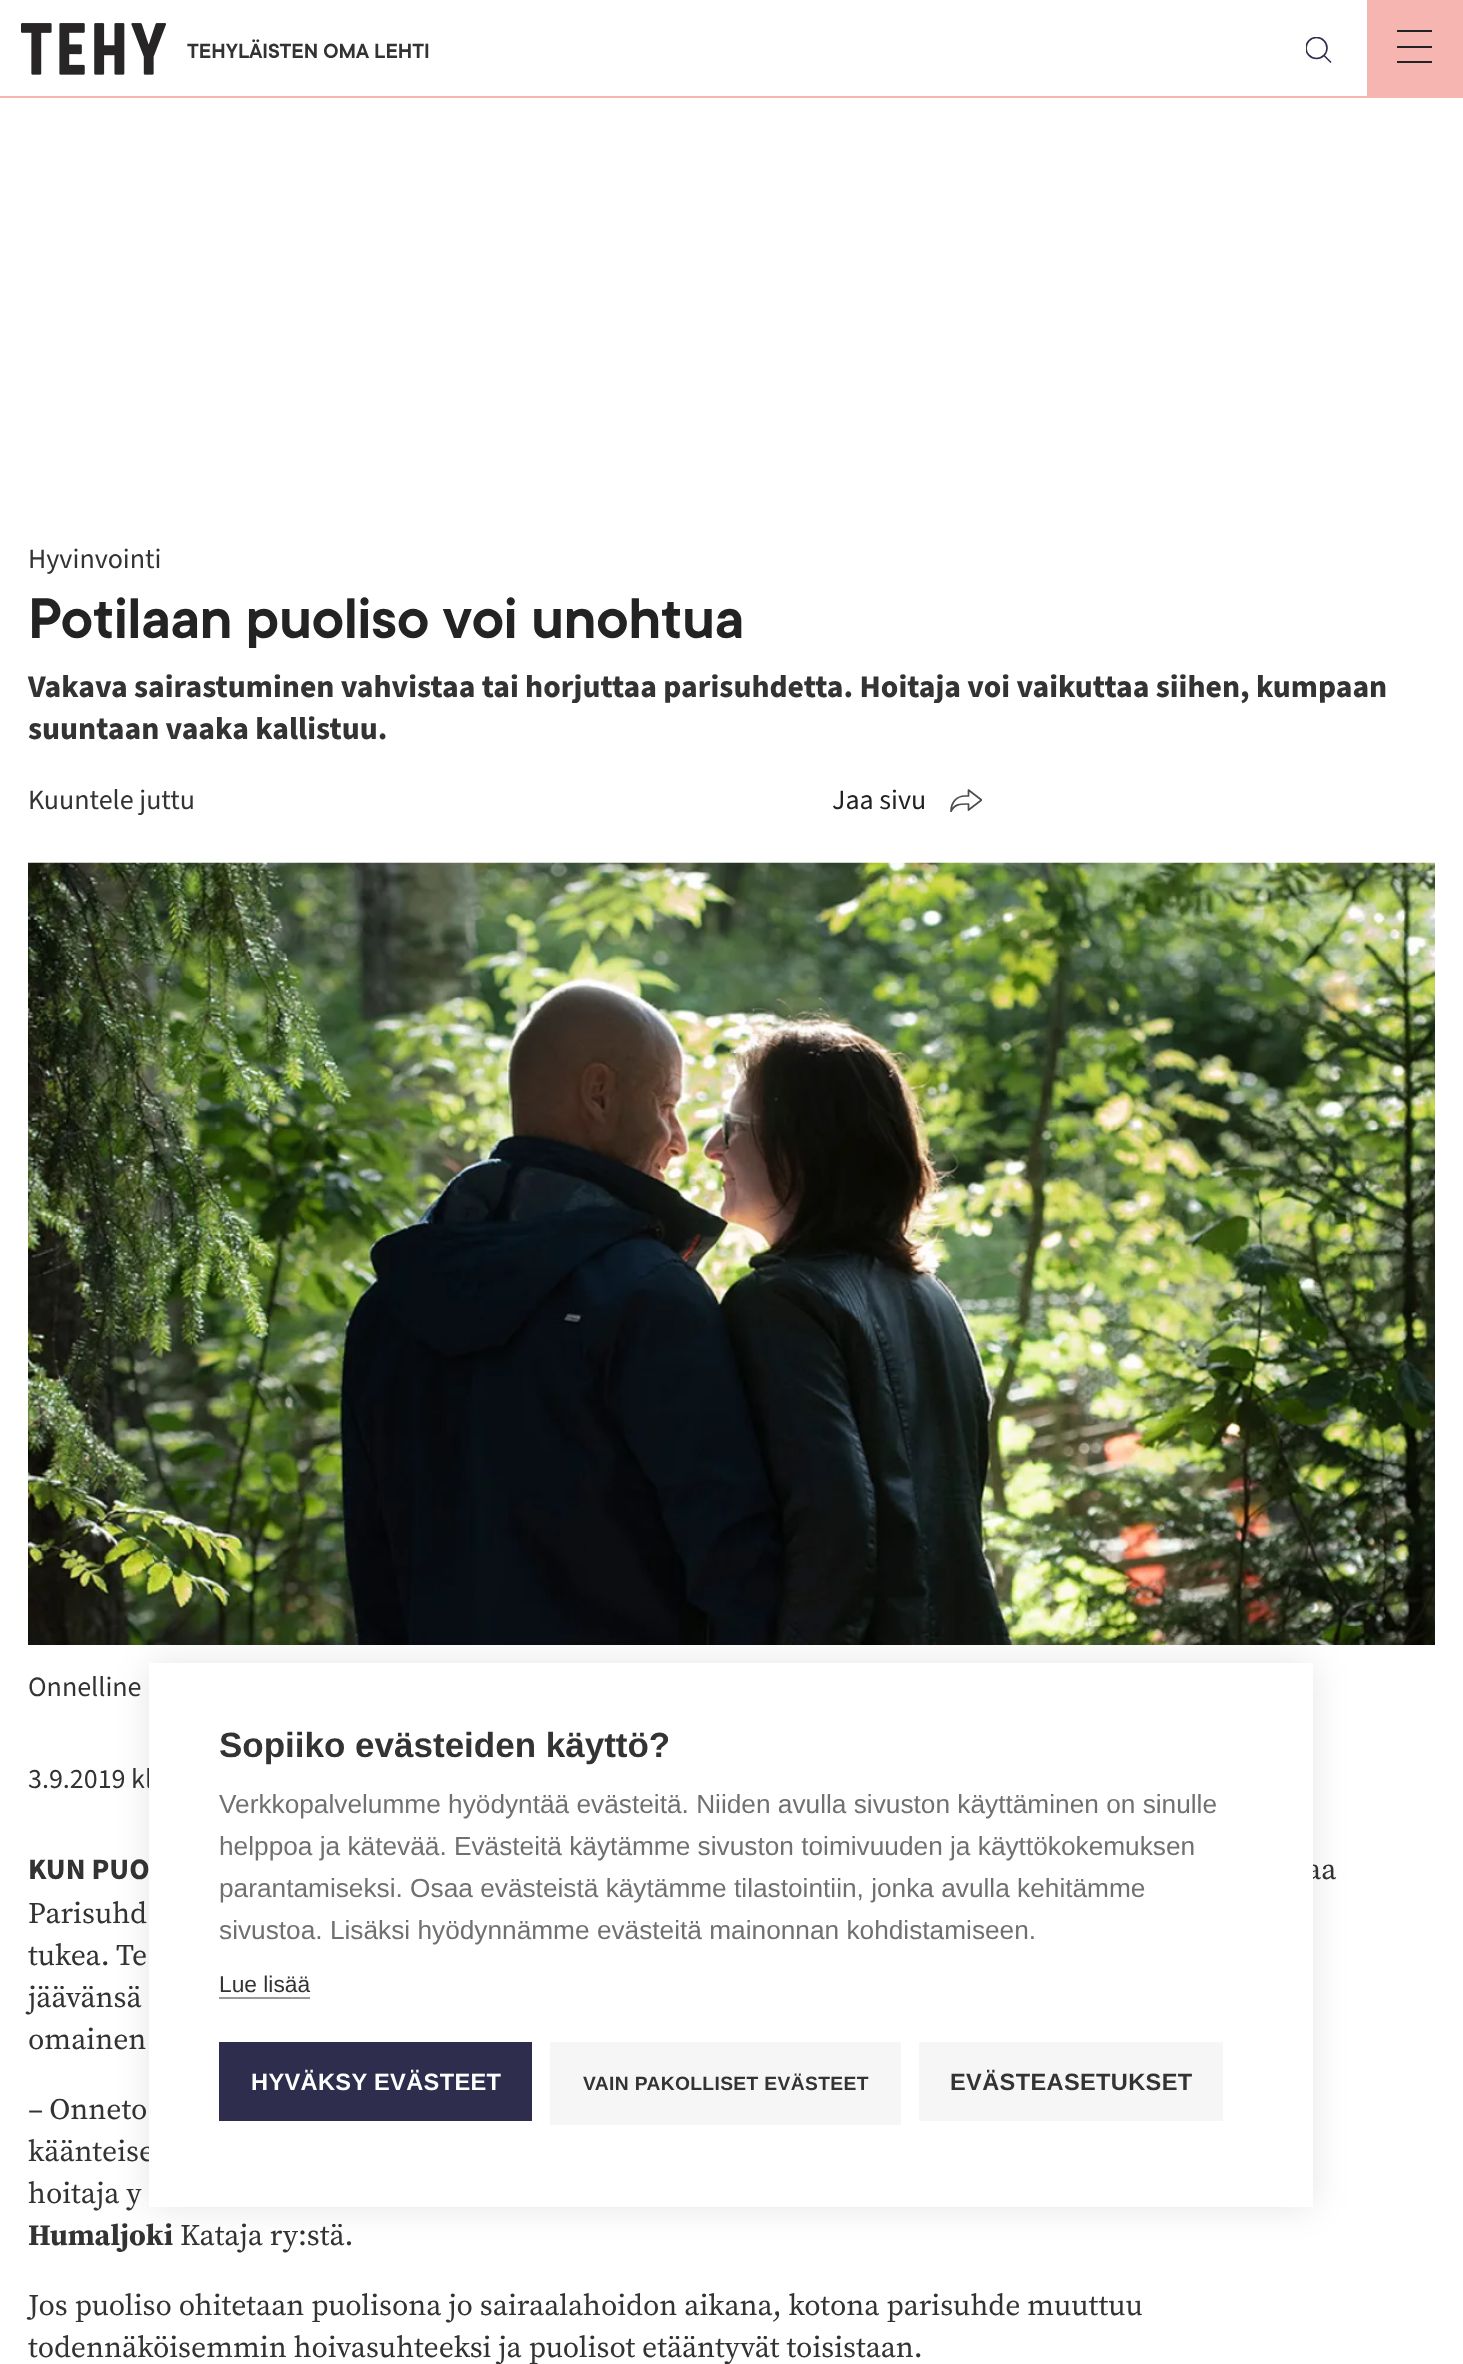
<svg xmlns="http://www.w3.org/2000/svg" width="1463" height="2364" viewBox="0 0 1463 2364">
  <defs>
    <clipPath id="clip1"><rect x="1306" y="37" width="26" height="26"/></clipPath>
    <clipPath id="clip2"><rect x="950" y="789" width="32" height="23"/></clipPath>
    <filter id="blur1" x="-50%" y="-200%" width="200%" height="500%"><feGaussianBlur stdDeviation="17.5"/></filter>
  </defs>
  <rect width="100%" height="100%" fill="#ffffff"/>
  <rect x="0" y="96" width="1463" height="2" fill="#f7b5b2"/>
  <image x="21" y="23" width="145" height="52" href="img1.png"/>
  <text x="187" y="58" font-family="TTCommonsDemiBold" font-size="22.75" font-weight="600" fill="#333333">TEHYLÄISTEN OMA LEHTI</text>
  <g clip-path="url(#clip1)">
    <circle cx="1316.5" cy="48" r="10.5" fill="none" stroke="#2f2d4e" stroke-width="1.6"/>
  </g>
  <path d="M1324 55.5L1331 62.5" fill="none" stroke="#2f2d4e" stroke-width="1.6"/>
  <rect x="1367" y="0" width="96" height="96" fill="#f7b5b2"/>
  <rect x="1397" y="30" width="35" height="2" fill="#232323"/>
  <rect x="1397" y="46" width="35" height="2" fill="#232323"/>
  <rect x="1397" y="61" width="35" height="2" fill="#232323"/>
  <text x="28" y="568" font-family="Source Sans Pro" font-size="28" fill="#333333">Hyvinvointi</text>
  <text x="28" y="638" font-family="TTCommonsDemiBold" font-size="63" font-weight="600" letter-spacing="-0.6" fill="#232323">Potilaan puoliso voi unohtua</text>
  <text x="28" y="697" font-family="Source Sans Pro" font-size="31.5" font-weight="bold" fill="#333333">Vakava sairastuminen vahvistaa tai horjuttaa parisuhdetta. Hoitaja voi vaikuttaa siihen, kumpaan</text>
  <text x="28" y="739" font-family="Source Sans Pro" font-size="31.5" font-weight="bold" fill="#333333">suuntaan vaaka kallistuu.</text>
  <text x="28" y="809" font-family="Source Sans Pro" font-size="28" fill="#333333">Kuuntele juttu</text>
  <text x="832" y="809" font-family="Source Sans Pro" font-size="28" fill="#232323">Jaa sivu</text>
  <g clip-path="url(#clip2)">
    <path d="M965 796H968.5V790L981.5 800L968.5 810V804C961.5 804 954.5 803.5 951 811.5C951 802.5 956.5 796 965 796Z" fill="none" stroke="#4d4d4d" stroke-width="1.7" stroke-linecap="round" stroke-linejoin="round"/>
  </g>
  <image x="28" y="862" width="1407" height="783" href="img2.png"/>
  <text x="28" y="1696" font-family="Source Sans Pro" font-size="28" fill="#333333">Onnelline</text>
  <text x="28" y="1788" font-family="Source Sans Pro" font-size="28" fill="#333333">3.9.2019 kl</text>
  <text x="28" y="1879" font-family="Source Sans Pro" font-size="29.75" font-weight="bold" fill="#333333">KUN PUO</text>
  <text x="1306" y="1879" font-family="Source Serif Pro" font-size="29.75" fill="#333333">aa</text>
  <text x="28" y="1923" font-family="Source Serif Pro" font-size="29.75" fill="#333333">Parisuhd</text>
  <text x="28" y="1965" font-family="Source Serif Pro" font-size="29.75" fill="#333333">tukea. Te</text>
  <text x="28" y="2007" font-family="Source Serif Pro" font-size="29.75" fill="#333333">jäävänsä</text>
  <text x="28" y="2049" font-family="Source Serif Pro" font-size="29.75" fill="#333333">omainen</text>
  <text x="28" y="2119" font-family="Source Serif Pro" font-size="29.75" fill="#333333">– Onneto</text>
  <text x="28" y="2161" font-family="Source Serif Pro" font-size="29.75" fill="#333333">käänteise</text>
  <text x="28" y="2203" font-family="Source Serif Pro" font-size="29.75" fill="#333333">hoitaja y</text>
  <text x="28" y="2245" font-family="Source Serif Pro" font-size="29.75" font-weight="bold" fill="#333333">Humaljoki</text>
  <text x="180" y="2245" font-family="Source Serif Pro" font-size="29.75" fill="#333333">Kataja ry:stä.</text>
  <text x="28" y="2315" font-family="Source Serif Pro" font-size="29.75" fill="#333333">Jos puoliso ohitetaan puolisona jo sairaalahoidon aikana, kotona parisuhde muuttuu</text>
  <text x="28" y="2357" font-family="Source Serif Pro" font-size="29.75" fill="#333333">todennäköisemmin hoivasuhteeksi ja puolisot etääntyvät toisistaan.</text>
  <rect x="149" y="1663" width="1164" height="544" fill="#000000" fill-opacity="0.1" filter="url(#blur1)"/>
  <rect x="149" y="1663" width="1164" height="544" fill="#ffffff"/>
  <text x="219" y="1757" font-family="Liberation Sans" font-size="35" font-weight="bold" fill="#333333">Sopiiko evästeiden käyttö?</text>
  <text x="219" y="1813" font-family="Liberation Sans" font-size="26.25" fill="#707070">Verkkopalvelumme hyödyntää evästeitä. Niiden avulla sivuston käyttäminen on sinulle</text>
  <text x="219" y="1855" font-family="Liberation Sans" font-size="26.25" fill="#707070">helppoa ja kätevää. Evästeitä käytämme sivuston toimivuuden ja käyttökokemuksen</text>
  <text x="219" y="1897" font-family="Liberation Sans" font-size="26.25" fill="#707070">parantamiseksi. Osaa evästeistä käytämme tilastointiin, jonka avulla kehitämme</text>
  <text x="219" y="1939" font-family="Liberation Sans" font-size="26.25" fill="#707070">sivustoa. Lisäksi hyödynnämme evästeitä mainonnan kohdistamiseen.</text>
  <text x="219" y="1992" font-family="Liberation Sans" font-size="22.75" fill="#333333">Lue lisää</text>
  <rect x="219" y="1997" width="91" height="2" fill="#999999"/>
  <rect x="219" y="2042" width="313" height="79" fill="#2f2d4e"/>
  <text x="251" y="2090" font-family="Liberation Sans" font-size="23.6" font-weight="bold" letter-spacing="0.35" fill="#ffffff">HYVÄKSY EVÄSTEET</text>
  <rect x="550" y="2042" width="351" height="83" fill="#f6f6f6"/>
  <text x="583" y="2090" font-family="Liberation Sans" font-size="19.25" font-weight="bold" letter-spacing="0.35" fill="#333333">VAIN PAKOLLISET EVÄSTEET</text>
  <rect x="919" y="2042" width="304" height="79" fill="#f6f6f6"/>
  <text x="950" y="2090" font-family="Liberation Sans" font-size="23.6" font-weight="bold" letter-spacing="0.35" fill="#333333">EVÄSTEASETUKSET</text>
</svg>
